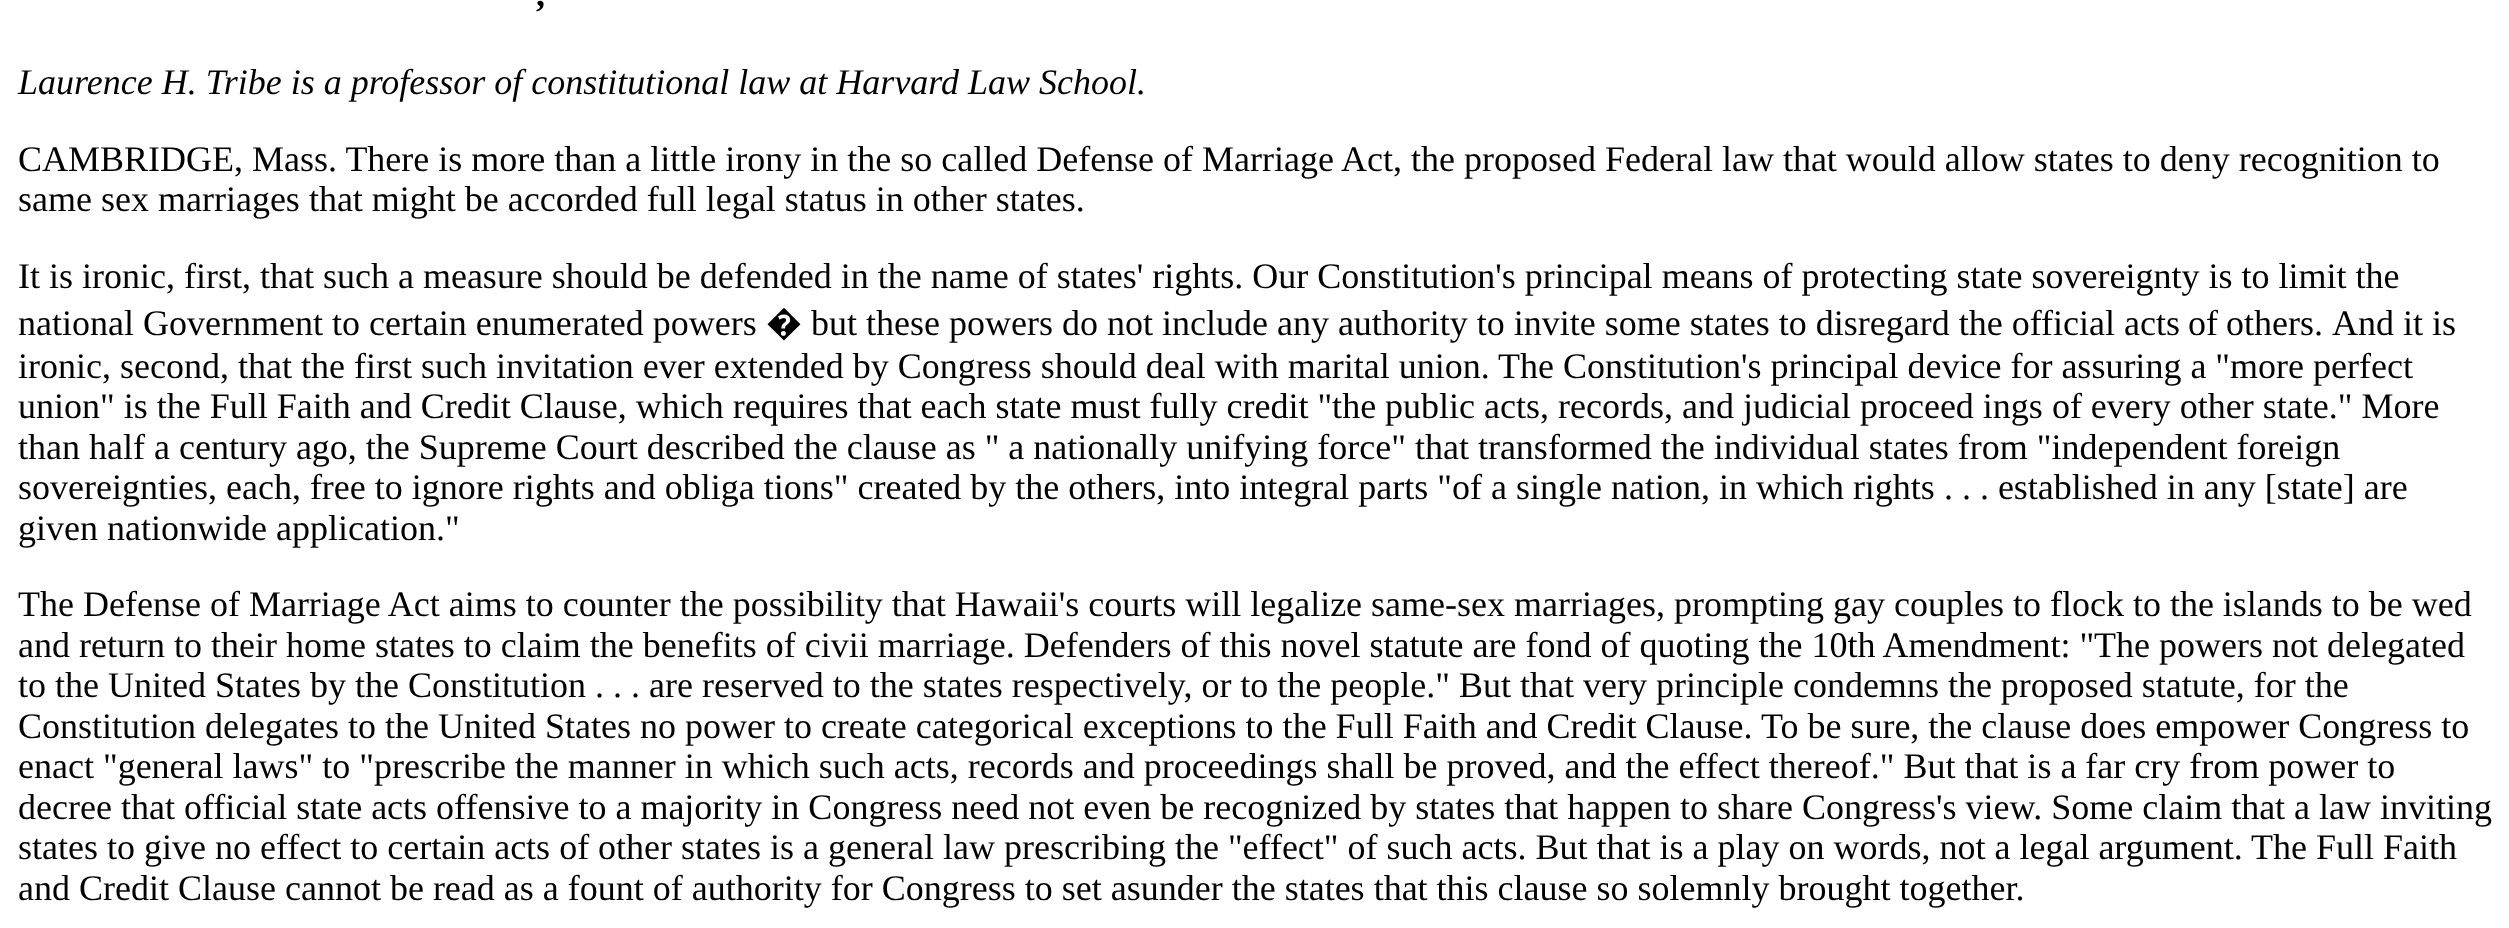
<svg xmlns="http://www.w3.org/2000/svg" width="2509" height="928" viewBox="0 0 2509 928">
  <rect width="100%" height="100%" fill="#ffffff"/>
  <text x="536" y="6" font-family="Liberation Serif" font-size="36" font-weight="bold" fill="#000000">,</text>
  <text x="18" y="94" font-family="Liberation Serif" font-size="36" font-style="italic" fill="#000000">Laurence H. Tribe is a professor of constitutional law at Harvard Law School.</text>
  <text x="18" y="171" font-family="Liberation Serif" font-size="36" fill="#000000">CAMBRIDGE, Mass. There is more than a little irony in the so called Defense of Marriage Act, the proposed Federal law that would allow states to deny recognition to</text>
  <text x="18" y="211" font-family="Liberation Serif" font-size="36" fill="#000000">same sex marriages that might be accorded full legal status in other states.</text>
  <text x="18" y="288" font-family="Liberation Serif" font-size="36" fill="#000000">It is ironic, first, that such a measure should be defended in the name of states' rights. Our Constitution's principal means of protecting state sovereignty is to limit the</text>
  <text x="18" y="335" font-family="Liberation Serif" font-size="36" fill="#000000">national Government to certain enumerated powers</text>
  <text x="766" y="335" font-family="Noto Sans" font-size="36" fill="#000000">�</text>
  <text x="811" y="335" font-family="Liberation Serif" font-size="36" fill="#000000">but these powers do not include any authority to invite some states to disregard the official</text>
  <text x="2124" y="335" word-spacing="-1" font-family="Liberation Serif" font-size="36" fill="#000000">acts of others.</text>
  <text x="2332" y="335" font-family="Liberation Serif" font-size="36" fill="#000000">And it is</text>
  <text x="18" y="378" font-family="Liberation Serif" font-size="36" fill="#000000">ironic, second, that the first such invitation ever extended by Congress should deal with marital union. The Constitution's principal device for assuring a "more perfect</text>
  <text x="18" y="418" font-family="Liberation Serif" font-size="36" fill="#000000">union" is the Full Faith and Credit Clause, which requires that each state must fully credit "the public acts, records, and judicial proceed ings of every other state." More</text>
  <text x="18" y="459" font-family="Liberation Serif" font-size="36" fill="#000000">than half a century ago, the Supreme Court described the clause as " a nationally unifying force" that transformed the individual states from "independent foreign</text>
  <text x="18" y="499" font-family="Liberation Serif" font-size="36" fill="#000000">sovereignties, each, free to ignore rights and obliga tions" created by the others, into integral parts "of a single nation, in which rights . . . established in any [state] are</text>
  <text x="18" y="540" font-family="Liberation Serif" font-size="36" fill="#000000">given nationwide application."</text>
  <text x="18" y="616" font-family="Liberation Serif" font-size="36" fill="#000000">The Defense of Marriage Act aims to counter the possibility that Hawaii's courts will legalize same-sex marriages, prompting gay couples to flock to the islands to be wed</text>
  <text x="18" y="657" font-family="Liberation Serif" font-size="36" fill="#000000">and return to their home states to claim the benefits of civii marriage. Defenders of this novel statute are fond of quoting the 10th Amendment: "The powers not delegated</text>
  <text x="18" y="697" font-family="Liberation Serif" font-size="36" fill="#000000">to the United States by the Constitution . . . are reserved to the states respectively, or to the people." But that very principle condemns the proposed statute, for the</text>
  <text x="18" y="738" font-family="Liberation Serif" font-size="36" fill="#000000">Constitution delegates to the United States no power to create categorical exceptions to the Full Faith and Credit Clause. To be sure, the clause does empower Congress to</text>
  <text x="18" y="778" font-family="Liberation Serif" font-size="36" fill="#000000">enact "general laws" to "prescribe the manner in which such acts, records and proceedings shall be proved, and the effect thereof." But that is a far cry from power to</text>
  <text x="18" y="819" font-family="Liberation Serif" font-size="36" fill="#000000">decree that official state acts offensive to a majority in Congress need not even be recognized by states that happen to share Congress's view. Some claim that a law inviting</text>
  <text x="18" y="859" font-family="Liberation Serif" font-size="36" fill="#000000">states to give no effect to certain acts of other states is a general law prescribing the "effect" of such acts. But that is a play on words, not a legal argument. The Full Faith</text>
  <text x="18" y="900" font-family="Liberation Serif" font-size="36" fill="#000000">and Credit Clause cannot be read as a fount of authority for Congress to set asunder the states that this clause so solemnly brought together.</text>
</svg>
